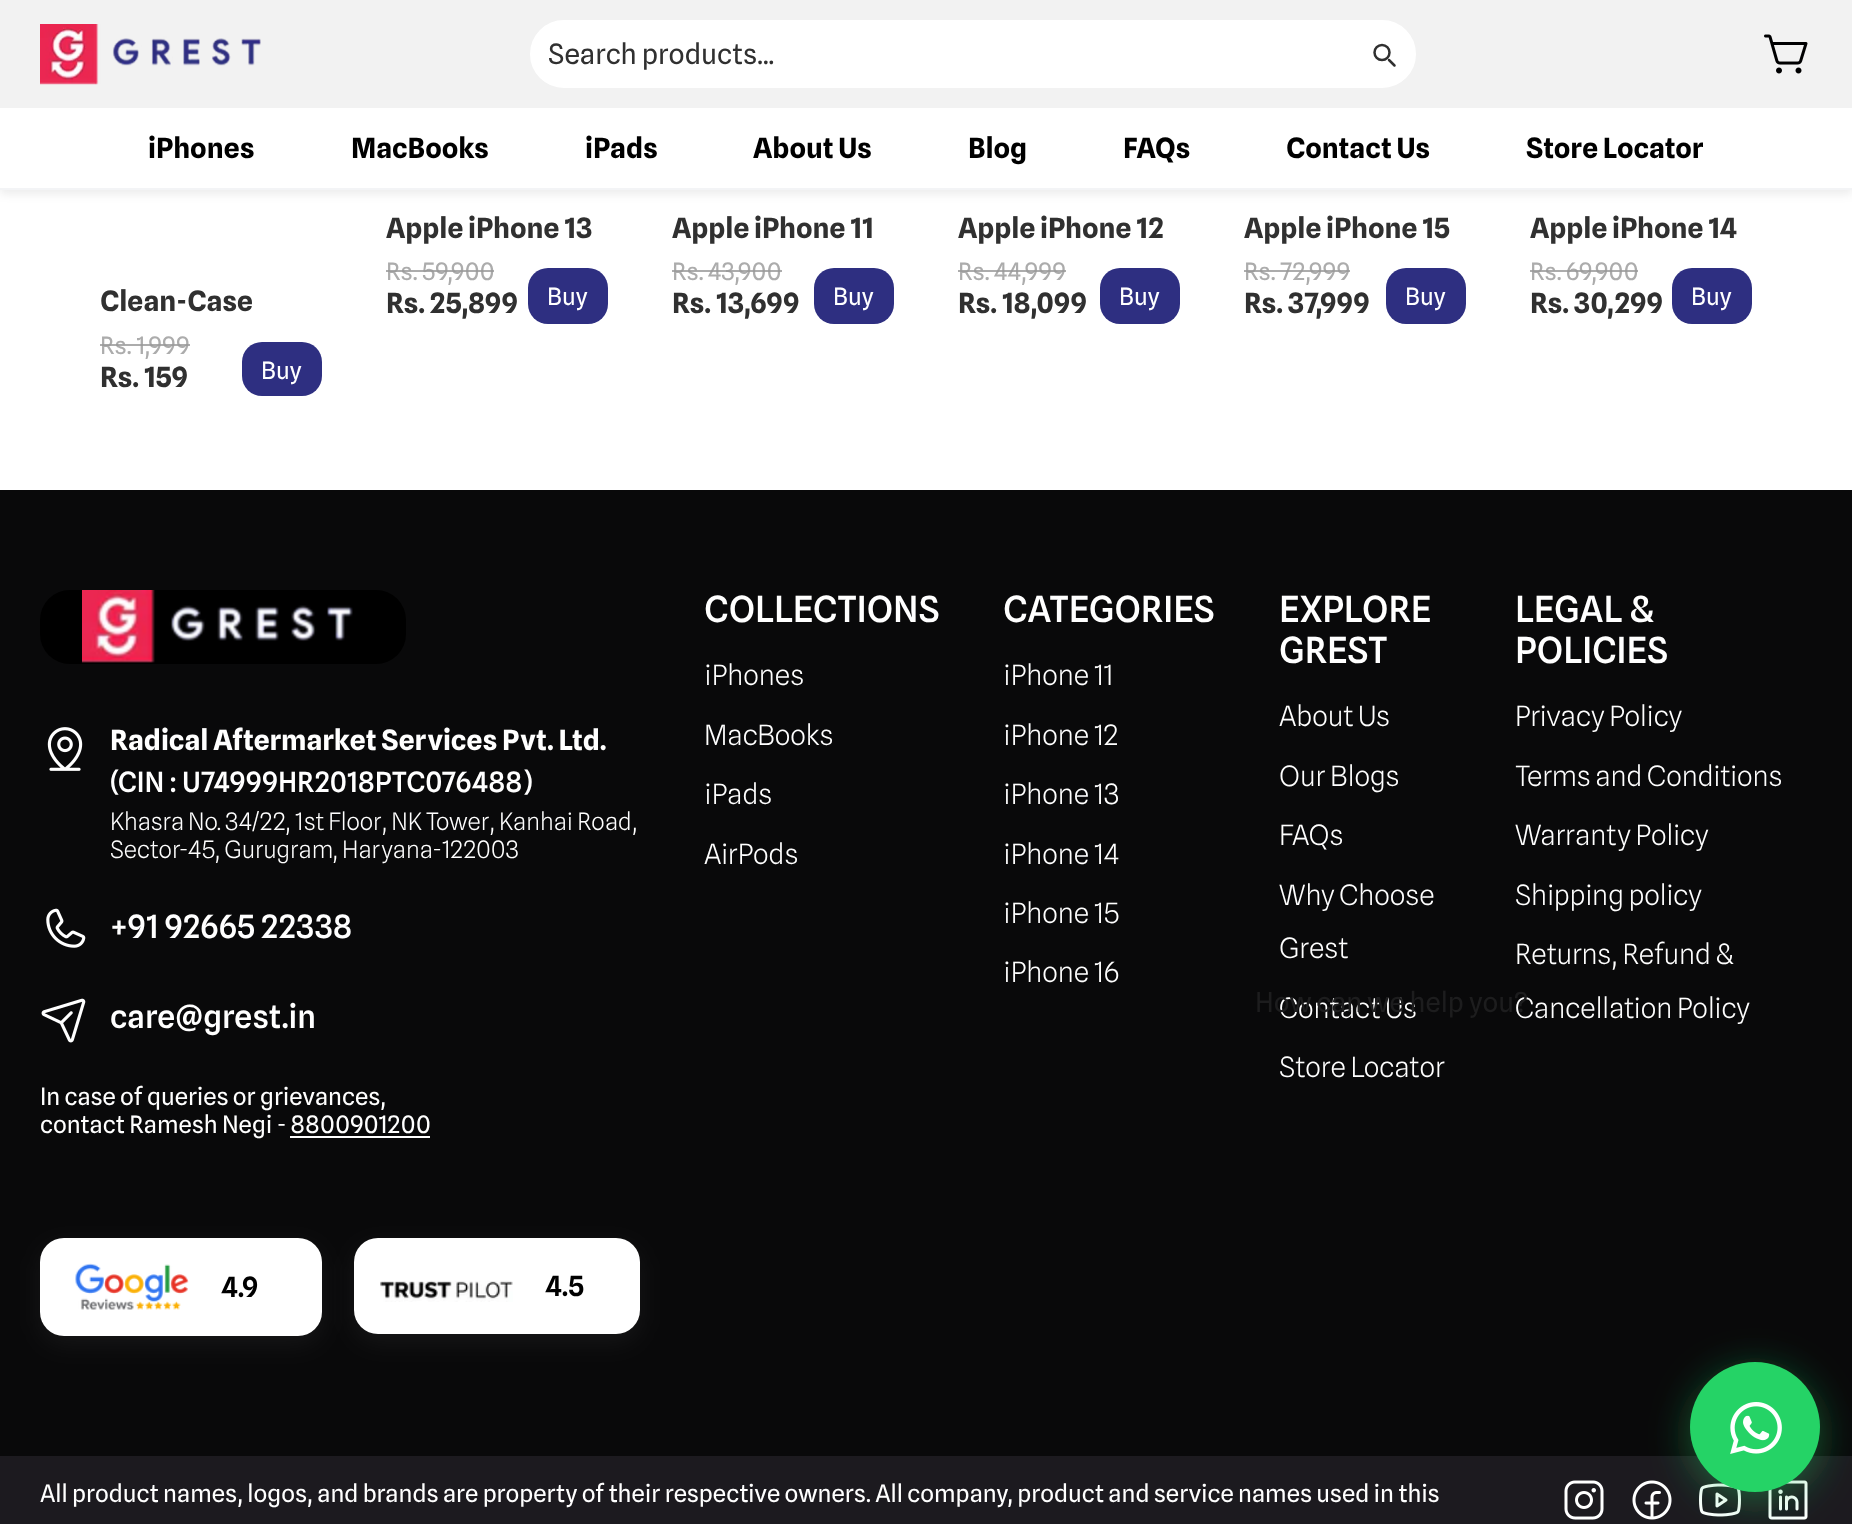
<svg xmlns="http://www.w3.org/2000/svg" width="1852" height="1524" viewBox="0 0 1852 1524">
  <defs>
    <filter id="blur1" x="-50%" y="-200%" width="200%" height="500%"><feGaussianBlur stdDeviation="5"/></filter>
    <filter id="blur2" x="-50%" y="-200%" width="200%" height="500%"><feGaussianBlur stdDeviation="12"/></filter>
    <filter id="blur3" x="-50%" y="-200%" width="200%" height="500%"><feGaussianBlur stdDeviation="20"/></filter>
  </defs>
  <rect width="100%" height="100%" fill="#ffffff"/>
  <rect x="0" y="4" width="1852" height="190" fill="#000000" fill-opacity="0.08" filter="url(#blur1)"/>
  <rect x="0" y="0" width="1852" height="108" fill="#f2f2f2"/>
  <rect x="0" y="188" width="1852" height="2" fill="#f3f4f6"/>
  <image x="40" y="24" width="221" height="61" href="img1.png"/>
  <rect x="532" y="22" width="882" height="64" rx="32" fill="#ffffff" stroke="#ffffff" stroke-width="4"/>
  <text x="548" y="64" font-family="Spline Sans" font-size="28" fill="#303030">Search products...</text>
  <path d="M1394.5 65.5L1389 60" fill="none" stroke="#303030" stroke-width="2.5" stroke-linecap="round" stroke-linejoin="round"/>
  <circle cx="1382" cy="52.5" r="7.5" fill="none" stroke="#303030" stroke-width="2.5"/>
  <image x="1764" y="34" width="44" height="40" href="img2.png"/>
  <rect x="0" y="108" width="1852" height="80" fill="#ffffff"/>
  <text x="148" y="158" font-family="Spline Sans" font-size="28" font-weight="bold" fill="#000000">iPhones</text>
  <text x="351" y="158" font-family="Spline Sans" font-size="28" font-weight="bold" fill="#000000">MacBooks</text>
  <text x="585" y="158" font-family="Spline Sans" font-size="28" font-weight="bold" fill="#000000">iPads</text>
  <text x="753" y="158" font-family="Spline Sans" font-size="28" font-weight="bold" fill="#000000">About Us</text>
  <text x="968" y="158" font-family="Spline Sans" font-size="28" font-weight="bold" fill="#000000">Blog</text>
  <text x="1123" y="158" font-family="Spline Sans" font-size="28" font-weight="bold" fill="#000000">FAQs</text>
  <text x="1286" y="158" font-family="Spline Sans" font-size="28" font-weight="bold" fill="#000000">Contact Us</text>
  <text x="1526" y="158" font-family="Spline Sans" font-size="28" font-weight="bold" fill="#000000">Store Locator</text>
  <text x="386" y="238" font-family="Spline Sans" font-size="28" font-weight="bold" fill="#303030">Apple iPhone 13</text>
  <text x="386" y="280" font-family="Spline Sans" font-size="24" fill="#acacac">Rs. 59,900</text>
  <rect x="386" y="270" width="108" height="2" fill="#999999" fill-opacity="0.81"/>
  <text x="386" y="313" font-family="Spline Sans" font-size="28" font-weight="bold" fill="#303030">Rs. 25,899</text>
  <rect x="528" y="268" width="80" height="56" rx="20" fill="#2e2f81"/>
  <text x="547" y="305" font-family="Spline Sans" font-size="24" fill="#ffffff">Buy</text>
  <text x="672" y="238" font-family="Spline Sans" font-size="28" font-weight="bold" fill="#303030">Apple iPhone 11</text>
  <text x="672" y="280" font-family="Spline Sans" font-size="24" fill="#acacac">Rs. 43,900</text>
  <rect x="672" y="270" width="110" height="2" fill="#999999" fill-opacity="0.81"/>
  <text x="672" y="313" font-family="Spline Sans" font-size="28" font-weight="bold" fill="#303030">Rs. 13,699</text>
  <rect x="814" y="268" width="80" height="56" rx="20" fill="#2e2f81"/>
  <text x="833" y="305" font-family="Spline Sans" font-size="24" fill="#ffffff">Buy</text>
  <text x="958" y="238" font-family="Spline Sans" font-size="28" font-weight="bold" fill="#303030">Apple iPhone 12</text>
  <text x="958" y="280" font-family="Spline Sans" font-size="24" fill="#acacac">Rs. 44,999</text>
  <rect x="958" y="270" width="108" height="2" fill="#999999" fill-opacity="0.81"/>
  <text x="958" y="313" font-family="Spline Sans" font-size="28" font-weight="bold" fill="#303030">Rs. 18,099</text>
  <rect x="1100" y="268" width="80" height="56" rx="20" fill="#2e2f81"/>
  <text x="1119" y="305" font-family="Spline Sans" font-size="24" fill="#ffffff">Buy</text>
  <text x="1244" y="238" font-family="Spline Sans" font-size="28" font-weight="bold" fill="#303030">Apple iPhone 15</text>
  <text x="1244" y="280" font-family="Spline Sans" font-size="24" fill="#acacac">Rs. 72,999</text>
  <rect x="1244" y="270" width="106" height="2" fill="#999999" fill-opacity="0.81"/>
  <text x="1244" y="313" font-family="Spline Sans" font-size="28" font-weight="bold" fill="#303030">Rs. 37,999</text>
  <rect x="1386" y="268" width="80" height="56" rx="20" fill="#2e2f81"/>
  <text x="1405" y="305" font-family="Spline Sans" font-size="24" fill="#ffffff">Buy</text>
  <text x="1530" y="238" font-family="Spline Sans" font-size="28" font-weight="bold" fill="#303030">Apple iPhone 14</text>
  <text x="1530" y="280" font-family="Spline Sans" font-size="24" fill="#acacac">Rs. 69,900</text>
  <rect x="1530" y="270" width="108" height="2" fill="#999999" fill-opacity="0.81"/>
  <text x="1530" y="313" font-family="Spline Sans" font-size="28" font-weight="bold" fill="#303030">Rs. 30,299</text>
  <rect x="1672" y="268" width="80" height="56" rx="20" fill="#2e2f81"/>
  <text x="1691" y="305" font-family="Spline Sans" font-size="24" fill="#ffffff">Buy</text>
  <text x="100" y="311" font-family="Spline Sans" font-size="28" font-weight="bold" fill="#303030">Clean-Case</text>
  <text x="100" y="354" font-family="Spline Sans" font-size="24" fill="#acacac">Rs. 1,999</text>
  <rect x="100" y="344" width="90" height="2" fill="#999999" fill-opacity="0.81"/>
  <text x="100" y="387" font-family="Spline Sans" font-size="28" font-weight="bold" fill="#303030">Rs. 159</text>
  <rect x="242" y="342" width="80" height="54" rx="20" fill="#2e2f81"/>
  <text x="261" y="379" font-family="Spline Sans" font-size="24" fill="#ffffff">Buy</text>
  <rect x="0" y="490" width="1852" height="966" fill="#09090a"/>
  <rect x="40" y="590" width="366" height="74" rx="30" fill="#000000"/>
  <image x="82" y="590" width="271" height="73" href="img3.png"/>
  <image x="47" y="727" width="36" height="44" href="img4.png"/>
  <text x="110" y="750" font-family="Spline Sans" font-size="28" font-weight="bold" fill="#ffffff">Radical Aftermarket Services Pvt. Ltd.</text>
  <text x="110" y="792" font-family="Spline Sans" font-size="28" font-weight="500" fill="#ffffff">(CIN : U74999HR2018PTC076488)</text>
  <text x="110" y="830" font-family="Spline Sans" font-size="24" font-weight="300" fill="#ffffff">Khasra No. 34/22, 1st Floor, NK Tower, Kanhai Road,</text>
  <text x="110" y="858" font-family="Spline Sans" font-size="24" font-weight="300" fill="#ffffff">Sector-45, Gurugram, Haryana-122003</text>
  <image x="46" y="908" width="40" height="40" href="img5.png"/>
  <text x="110" y="938" font-family="Spline Sans" font-size="32" font-weight="500" fill="#ffffff">+91 92665 22338</text>
  <image x="41" y="998" width="45" height="45" href="img6.png"/>
  <text x="110" y="1028" font-family="Spline Sans" font-size="32" font-weight="500" fill="#ffffff">care@grest.in</text>
  <text x="40" y="1105" font-family="Spline Sans" font-size="24" fill="#ffffff">In case of queries or grievances,</text>
  <text x="40" y="1133" font-family="Spline Sans" font-size="24" fill="#ffffff">contact Ramesh Negi - 8800901200</text>
  <rect x="290" y="1136" width="140" height="2" fill="#ffffff"/>
  <rect x="40" y="1246" width="282" height="98" rx="24" fill="#ffffff" fill-opacity="0.05" filter="url(#blur2)"/>
  <rect x="40" y="1238" width="282" height="98" rx="24" fill="#ffffff"/>
  <image x="75" y="1263" width="114" height="47" href="img7.png"/>
  <text x="222" y="1297" font-family="Spline Sans" font-size="28" font-weight="600" fill="#000000">4.9</text>
  <rect x="354" y="1246" width="286" height="96" rx="24" fill="#ffffff" fill-opacity="0.05" filter="url(#blur2)"/>
  <rect x="354" y="1238" width="286" height="96" rx="24" fill="#ffffff"/>
  <image x="380" y="1280" width="133" height="22" href="img8.png"/>
  <text x="546" y="1296" font-family="Spline Sans" font-size="28" font-weight="600" fill="#000000">4.5</text>
  <text x="704" y="622" font-family="Spline Sans" font-size="36" font-weight="500" fill="#ffffff">COLLECTIONS</text>
  <text x="704" y="685" font-family="Spline Sans" font-size="28" font-weight="300" fill="#ffffff">iPhones</text>
  <text x="704" y="745" font-family="Spline Sans" font-size="28" font-weight="300" fill="#ffffff">MacBooks</text>
  <text x="704" y="804" font-family="Spline Sans" font-size="28" font-weight="300" fill="#ffffff">iPads</text>
  <text x="704" y="864" font-family="Spline Sans" font-size="28" font-weight="300" fill="#ffffff">AirPods</text>
  <text x="1003" y="622" font-family="Spline Sans" font-size="36" font-weight="500" fill="#ffffff">CATEGORIES</text>
  <text x="1003" y="685" font-family="Spline Sans" font-size="28" font-weight="300" fill="#ffffff">iPhone 11</text>
  <text x="1003" y="745" font-family="Spline Sans" font-size="28" font-weight="300" fill="#ffffff">iPhone 12</text>
  <text x="1003" y="804" font-family="Spline Sans" font-size="28" font-weight="300" fill="#ffffff">iPhone 13</text>
  <text x="1003" y="864" font-family="Spline Sans" font-size="28" font-weight="300" fill="#ffffff">iPhone 14</text>
  <text x="1003" y="923" font-family="Spline Sans" font-size="28" font-weight="300" fill="#ffffff">iPhone 15</text>
  <text x="1003" y="982" font-family="Spline Sans" font-size="28" font-weight="300" fill="#ffffff">iPhone 16</text>
  <text x="1279" y="622" font-family="Spline Sans" font-size="36" font-weight="500" fill="#ffffff">EXPLORE</text>
  <text x="1279" y="663" font-family="Spline Sans" font-size="36" font-weight="500" fill="#ffffff">GREST</text>
  <text x="1279" y="726" font-family="Spline Sans" font-size="28" font-weight="300" fill="#ffffff">About Us</text>
  <text x="1279" y="786" font-family="Spline Sans" font-size="28" font-weight="300" fill="#ffffff">Our Blogs</text>
  <text x="1279" y="845" font-family="Spline Sans" font-size="28" font-weight="300" fill="#ffffff">FAQs</text>
  <text x="1279" y="905" font-family="Spline Sans" font-size="28" font-weight="300" fill="#ffffff">Why Choose</text>
  <text x="1279" y="958" font-family="Spline Sans" font-size="28" font-weight="300" fill="#ffffff">Grest</text>
  <text x="1279" y="1018" font-family="Spline Sans" font-size="28" font-weight="300" fill="#ffffff">Contact Us</text>
  <text x="1279" y="1077" font-family="Spline Sans" font-size="28" font-weight="300" fill="#ffffff">Store Locator</text>
  <text x="1515" y="622" font-family="Spline Sans" font-size="36" font-weight="500" fill="#ffffff">LEGAL &amp;</text>
  <text x="1515" y="663" font-family="Spline Sans" font-size="36" font-weight="500" fill="#ffffff">POLICIES</text>
  <text x="1515" y="726" font-family="Spline Sans" font-size="28" font-weight="300" fill="#ffffff">Privacy Policy</text>
  <text x="1515" y="786" font-family="Spline Sans" font-size="28" font-weight="300" fill="#ffffff">Terms and Conditions</text>
  <text x="1515" y="845" font-family="Spline Sans" font-size="28" font-weight="300" fill="#ffffff">Warranty Policy</text>
  <text x="1515" y="905" font-family="Spline Sans" font-size="28" font-weight="300" fill="#ffffff">Shipping policy</text>
  <text x="1515" y="964" font-family="Spline Sans" font-size="28" font-weight="300" fill="#ffffff">Returns, Refund &amp;</text>
  <text x="1515" y="1018" font-family="Spline Sans" font-size="28" font-weight="300" fill="#ffffff">Cancellation Policy</text>
  <rect x="0" y="1456" width="1852" height="68" fill="#1c1a1f"/>
  <text x="40" y="1502" font-family="Spline Sans" font-size="24" fill="#ffffff">All product names, logos, and brands are property of their respective owners. All company, product and service names used in this</text>
  <image x="1564" y="1480" width="40" height="40" href="img9.png"/>
  <image x="1632" y="1480" width="40" height="40" href="img10.png"/>
  <image x="1699" y="1483" width="42" height="34" href="img11.png"/>
  <image x="1768" y="1480" width="40" height="40" href="img12.png"/>
  <text x="1255" y="1012" font-family="Spline Sans" font-size="27.5" fill="#1d1d1e">How can we help you?</text>
  <rect x="1690" y="1370" width="130" height="130" rx="65" fill="#25d366" fill-opacity="0.4" filter="url(#blur3)"/>
  <circle cx="1755" cy="1427" r="65" fill="#25d366"/>
  <image x="1730" y="1402" width="52" height="52" href="img13.png"/>
</svg>
